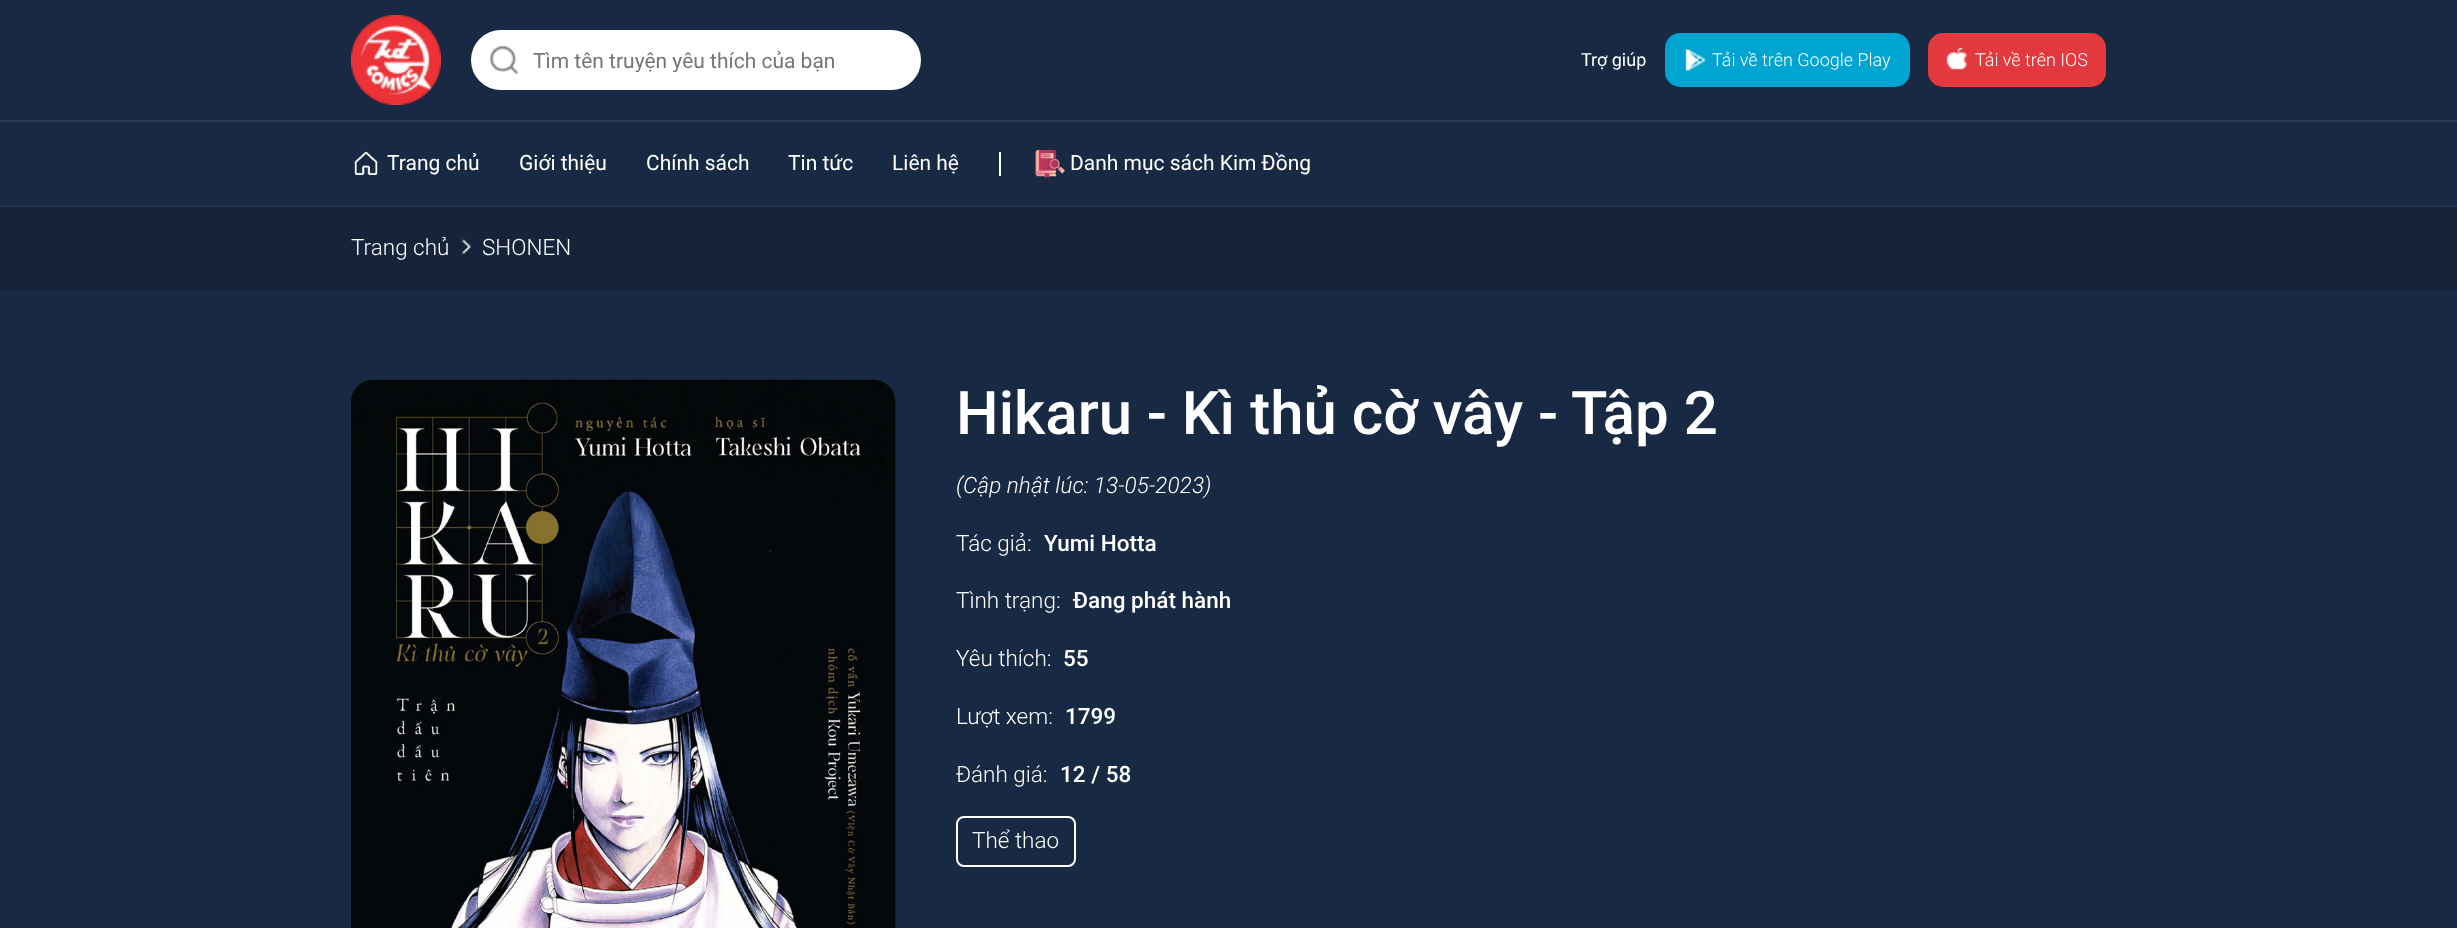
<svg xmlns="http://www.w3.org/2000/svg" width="2457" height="928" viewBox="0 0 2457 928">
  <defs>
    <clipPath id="clip1"><rect x="533" y="48" width="364" height="24"/></clipPath>
  </defs>
  <rect width="100%" height="100%" fill="#182943"/>
  <rect x="0" y="120" width="2457" height="2" fill="#283850"/>
  <image x="351" y="15" width="90" height="90" href="img1.png"/>
  <rect x="472" y="31" width="448" height="58" rx="29" fill="#ffffff" stroke="#ffffff" stroke-width="2"/>
  <image x="489" y="45" width="30" height="30" href="img2.png"/>
  <g clip-path="url(#clip1)">
    <text x="533" y="68" font-family="Roboto" font-size="21" fill="#757575">Tìm tên truyện yêu thích của bạn</text>
  </g>
  <text x="1581" y="66" font-family="Roboto" font-size="18" fill="#ffffff">Trợ giúp</text>
  <rect x="1665" y="33" width="245" height="54" rx="15" fill="#00a4d1"/>
  <image x="1685" y="49" width="21" height="22" href="img3.png"/>
  <text x="1712" y="66" font-family="Roboto" font-size="18" font-weight="300" fill="#ffffff">Tải về trên Google Play</text>
  <rect x="1928" y="33" width="178" height="54" rx="15" fill="#e3383d"/>
  <image x="1946" y="48" width="21" height="22" href="img4.png"/>
  <text x="1975" y="66" font-family="Roboto" font-size="18" font-weight="300" fill="#ffffff">Tải về trên IOS</text>
  <image x="354" y="151" width="24" height="24" href="img5.png"/>
  <text x="387" y="170" font-family="Roboto" font-size="21" fill="#ffffff">Trang chủ</text>
  <text x="519" y="170" font-family="Roboto" font-size="21" fill="#ffffff">Giới thiệu</text>
  <text x="646" y="170" font-family="Roboto" font-size="21" fill="#ffffff">Chính sách</text>
  <text x="788" y="170" font-family="Roboto" font-size="21" fill="#ffffff">Tin tức</text>
  <text x="892" y="170" font-family="Roboto" font-size="21" fill="#ffffff">Liên hệ</text>
  <rect x="999" y="152" width="2" height="24" fill="#ffffff"/>
  <image x="1035" y="149" width="30" height="29" href="img6.png"/>
  <text x="1070" y="170" font-family="Roboto" font-size="21" fill="#ffffff">Danh mục sách Kim Đồng</text>
  <rect x="0" y="206" width="2457" height="1" fill="#283850"/>
  <rect x="0" y="207" width="2457" height="83" fill="#15243a"/>
  <text x="351" y="255" font-family="Roboto" font-size="22.5" font-weight="300" fill="#ffffff">Trang chủ</text>
  <image x="462" y="239" width="9" height="15" href="img7.png"/>
  <text x="482" y="255" font-family="Roboto" font-size="22.5" font-weight="300" fill="#ffffff">SHONEN</text>
  <image x="351" y="379" width="545" height="549" href="img8.png"/>
  <text x="956" y="434" font-family="Roboto" font-size="60" font-weight="500" fill="#ffffff">Hikaru - Kì thủ cờ vây - Tập 2</text>
  <text x="956" y="493" font-family="Roboto" font-size="22.5" font-weight="300" font-style="italic" fill="#ffffff">(Cập nhật lúc: 13-05-2023)</text>
  <text x="956" y="551" font-family="Roboto" font-size="22.5" font-weight="300" fill="#ffffff">Tác giả:</text>
  <text x="1044" y="551" font-family="Roboto" font-size="22.5" font-weight="500" fill="#ffffff">Yumi Hotta</text>
  <text x="956" y="608" font-family="Roboto" font-size="22.5" font-weight="300" fill="#ffffff">Tình trạng:</text>
  <text x="1073" y="608" font-family="Roboto" font-size="22.5" font-weight="500" fill="#ffffff">Đang phát hành</text>
  <text x="956" y="666" font-family="Roboto" font-size="22.5" font-weight="300" fill="#ffffff">Yêu thích:</text>
  <text x="1063" y="666" font-family="Roboto" font-size="22.5" font-weight="500" fill="#ffffff">55</text>
  <text x="956" y="724" font-family="Roboto" font-size="22.5" font-weight="300" fill="#ffffff">Lượt xem:</text>
  <text x="1065" y="724" font-family="Roboto" font-size="22.5" font-weight="500" fill="#ffffff">1799</text>
  <text x="956" y="782" font-family="Roboto" font-size="22.5" font-weight="300" fill="#ffffff">Đánh giá:</text>
  <text x="1060" y="782" font-family="Roboto" font-size="22.5" font-weight="500" fill="#ffffff">12 / 58</text>
  <rect x="957" y="817" width="118" height="49" rx="7" fill="none" stroke="#ffffff" stroke-width="2"/>
  <text x="972" y="848" font-family="Roboto" font-size="22.5" font-weight="300" fill="#ffffff">Thể thao</text>
</svg>
